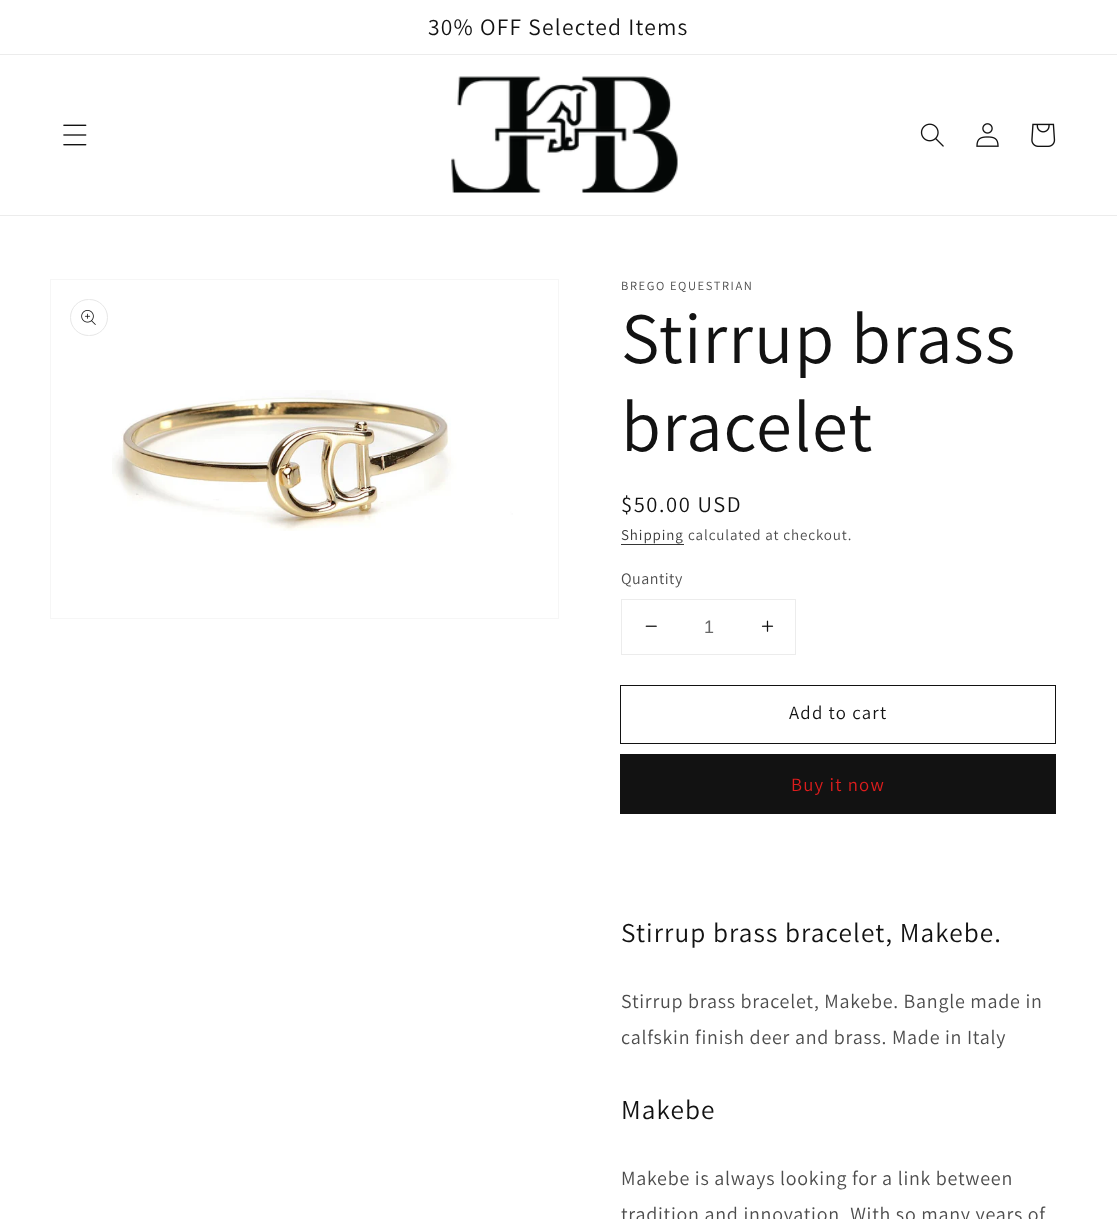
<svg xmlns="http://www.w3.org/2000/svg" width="1117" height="1219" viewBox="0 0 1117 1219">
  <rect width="100%" height="100%" fill="#ffffff"/>
  <rect x="0" y="54" width="1117" height="1" fill="#ececec"/>
  <text x="428" y="35" font-family="Assistant" font-size="23.5" letter-spacing="1.25" fill="#121212">30% OFF Selected Items</text>
  <rect x="0" y="215" width="1117" height="1" fill="#ececec"/>
  <image x="63" y="124" width="24" height="22" href="img1.png"/>
  <image x="451" y="76" width="227" height="117" href="img2.png"/>
  <image x="920" y="123" width="24" height="24" href="img3.png"/>
  <image x="976" y="123" width="23" height="24" href="img4.png"/>
  <image x="1031" y="123" width="25" height="24" href="img5.png"/>
  <rect x="50.5" y="279.5" width="508" height="339" fill="none" stroke="#f6f6f6"/>
  <rect x="70.5" y="299.5" width="37" height="36" rx="18" fill="none" stroke="#e7e7e7"/>
  <image x="81" y="310" width="15" height="15" href="img6.png"/>
  <image x="112" y="390" width="401" height="141" href="img7.png"/>
  <text x="621" y="290" font-family="Assistant" font-size="12.5" letter-spacing="1.6" fill="#4d4d4d">BREGO EQUESTRIAN</text>
  <text x="621" y="363" font-family="Assistant" font-size="72.5" letter-spacing="1.1" fill="#121212">Stirrup brass</text>
  <text x="621" y="451" font-family="Assistant" font-size="72.5" letter-spacing="1.1" fill="#121212">bracelet</text>
  <text x="621" y="512" font-family="Assistant" font-size="22.5" letter-spacing="1.6" fill="#121212">$50.00 USD</text>
  <text x="621" y="540" font-family="Assistant" font-size="15" letter-spacing="0.9" fill="#363636">Shipping</text>
  <rect x="621" y="544" width="63" height="1" fill="#363636"/>
  <text x="688" y="540" font-family="Assistant" font-size="15" letter-spacing="0.9" fill="#4d4d4d">calculated at checkout.</text>
  <text x="621" y="584" font-family="Assistant" font-size="16" letter-spacing="0.5" fill="#4d4d4d">Quantity</text>
  <rect x="621.5" y="599.5" width="174" height="55" fill="none" stroke="#ececec"/>
  <image x="645" y="625" width="12" height="2" href="img8.png"/>
  <text x="704" y="633" font-family="Liberation Sans" font-size="18" fill="#686868">1</text>
  <image x="761" y="620" width="13" height="12" href="img9.png"/>
  <rect x="620.5" y="685.5" width="435" height="58" fill="none" stroke="#121212"/>
  <text x="789" y="719" font-family="Assistant" font-size="18.75" letter-spacing="1.25" fill="#121212">Add to cart</text>
  <rect x="620.5" y="754.5" width="435" height="59" fill="none" stroke="#121212"/>
  <rect x="621" y="755" width="434" height="58" fill="#121212"/>
  <text x="791" y="791" font-family="Assistant" font-size="18.75" letter-spacing="1.25" fill="#dd1d1d">Buy it now</text>
  <text x="621" y="942" font-family="Assistant" font-size="27.25" letter-spacing="1.1" fill="#121212">Stirrup brass bracelet, Makebe.</text>
  <text x="621" y="1008" font-family="Assistant" font-size="20" letter-spacing="0.75" fill="#4d4d4d">Stirrup brass bracelet, Makebe. Bangle made in</text>
  <text x="621" y="1044" font-family="Assistant" font-size="20" letter-spacing="0.75" fill="#4d4d4d">calfskin finish deer and brass. Made in Italy</text>
  <text x="621" y="1119" font-family="Assistant" font-size="27.25" letter-spacing="1.1" fill="#121212">Makebe</text>
  <text x="621" y="1185" font-family="Assistant" font-size="20" letter-spacing="0.75" fill="#4d4d4d">Makebe is always looking for a link between</text>
  <text x="621" y="1221" font-family="Assistant" font-size="20" letter-spacing="0.75" fill="#4d4d4d">tradition and innovation. With so many years of</text>
</svg>
